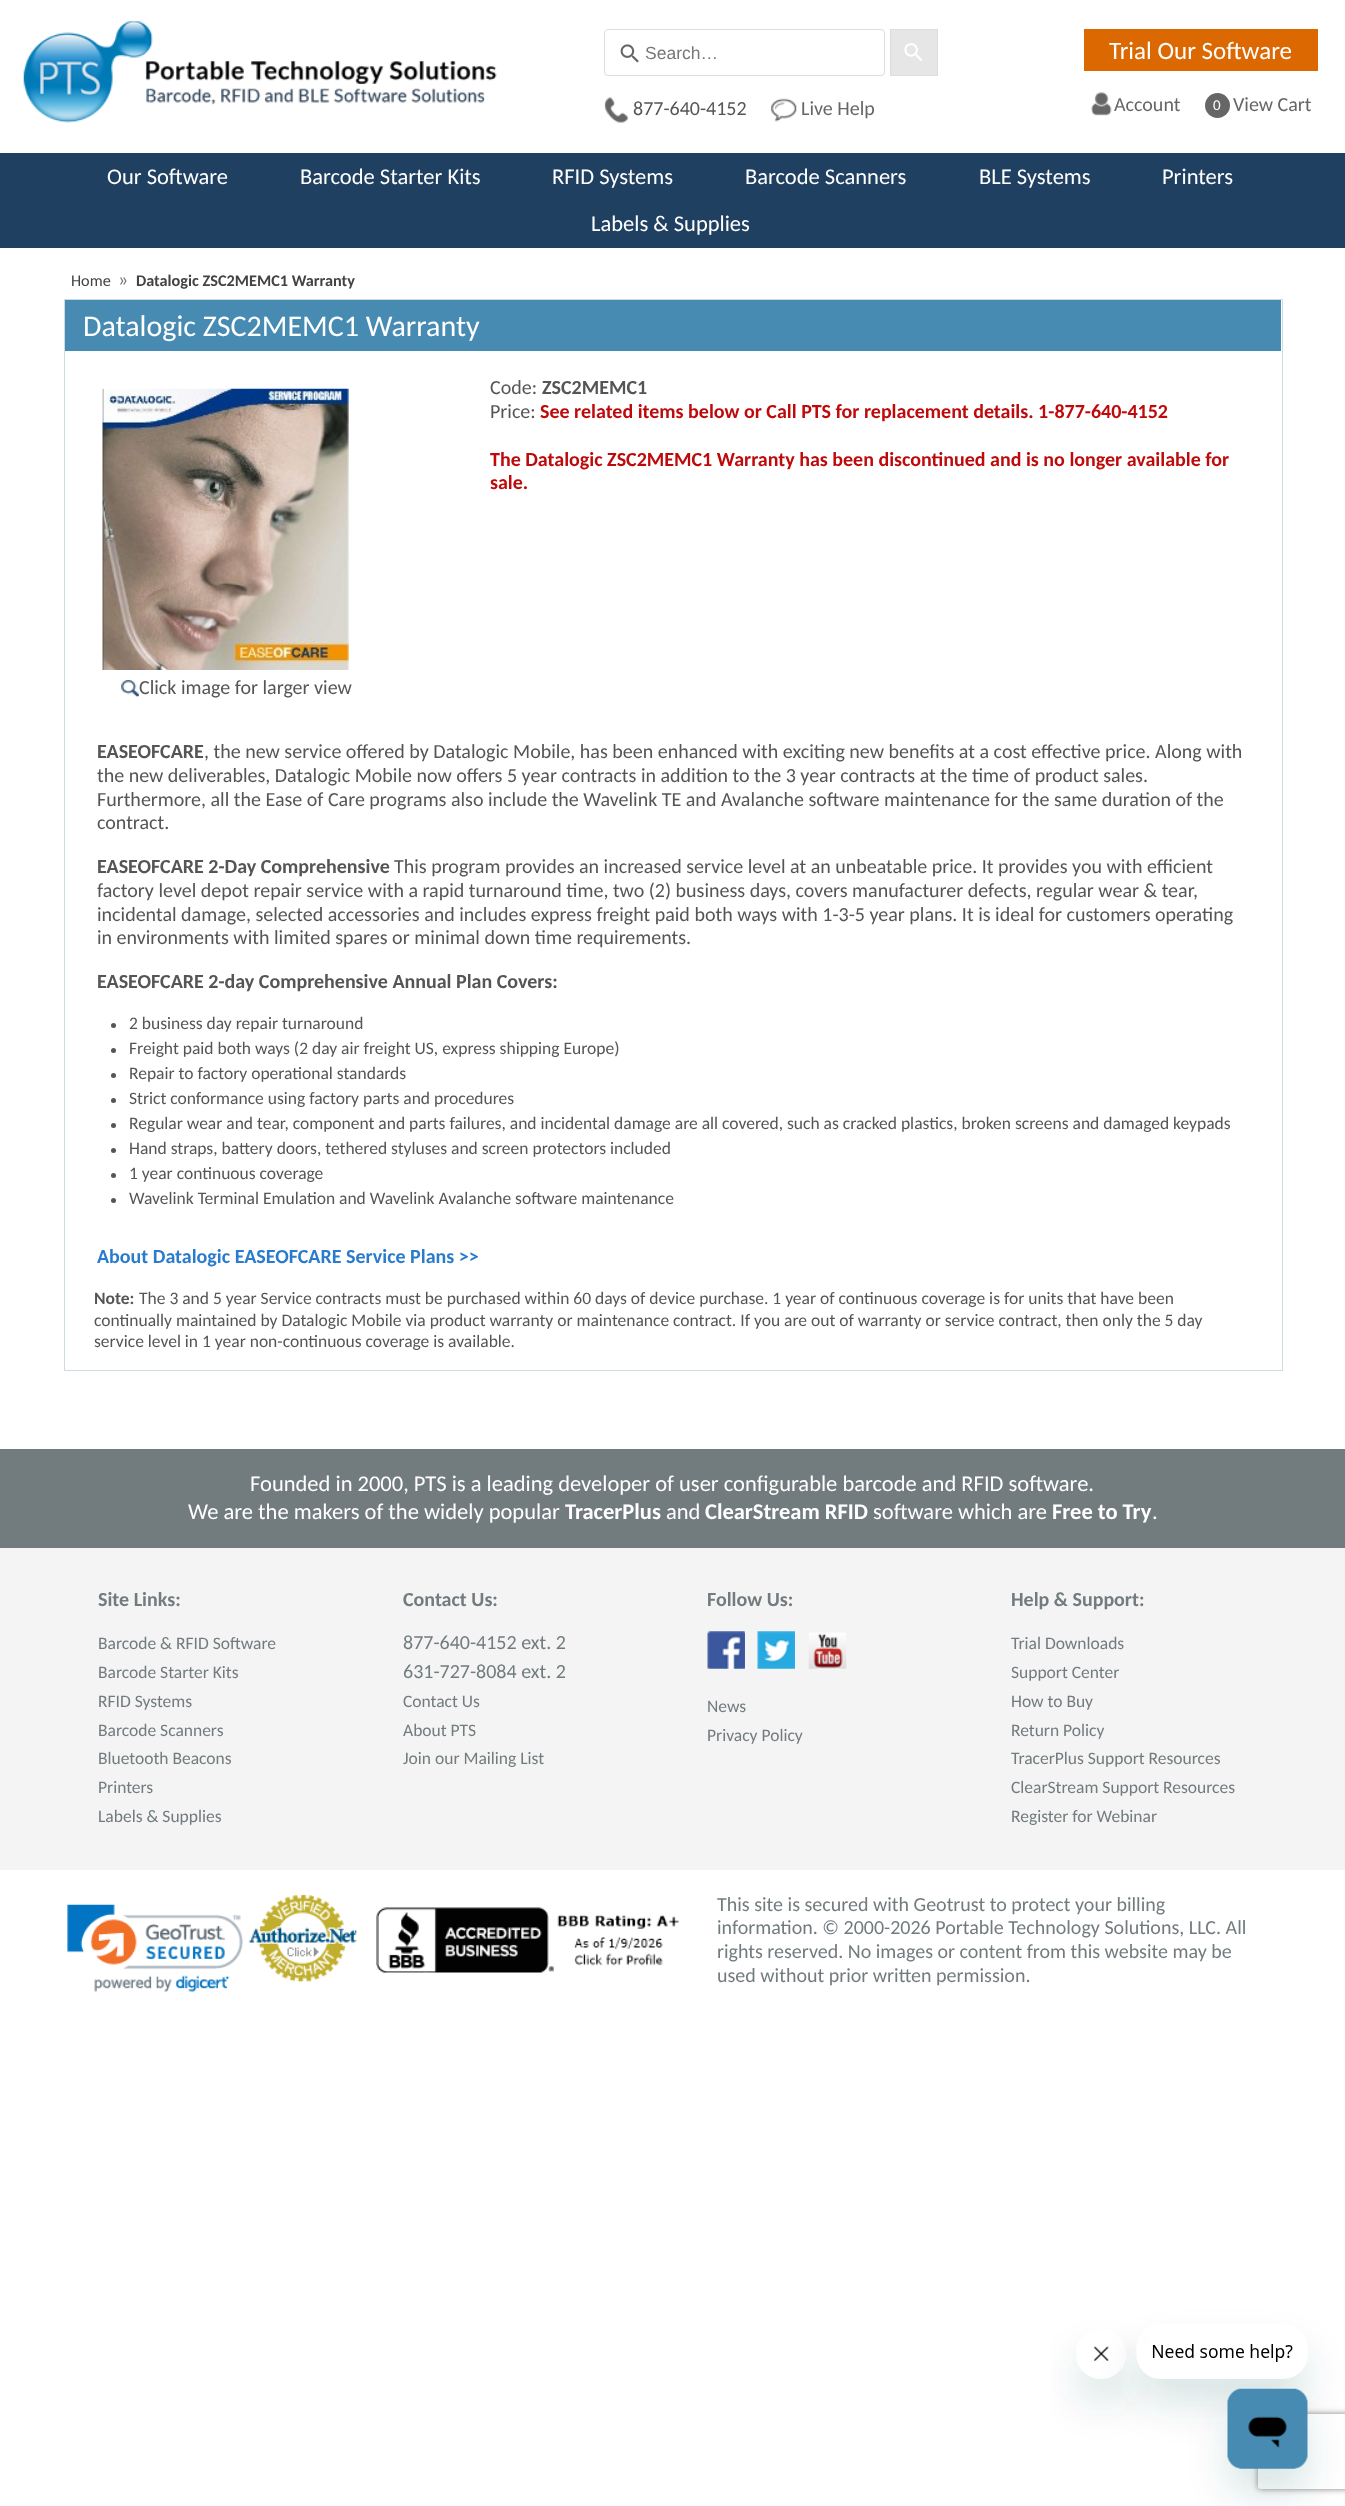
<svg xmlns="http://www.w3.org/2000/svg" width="1345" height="2506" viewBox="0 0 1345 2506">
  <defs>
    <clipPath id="clip1"><path d="M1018 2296H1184V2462H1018ZM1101 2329C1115 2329 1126 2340 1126 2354C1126 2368 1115 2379 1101 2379C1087 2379 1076 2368 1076 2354C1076 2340 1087 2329 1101 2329Z" clip-rule="evenodd"/></clipPath>
    <filter id="blur1" x="-50%" y="-200%" width="200%" height="500%"><feGaussianBlur stdDeviation="19"/></filter>
    <clipPath id="clip2"><path d="M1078 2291H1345V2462H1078ZM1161 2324H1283C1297 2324 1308 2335 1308 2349V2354C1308 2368 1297 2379 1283 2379H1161C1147 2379 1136 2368 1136 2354V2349C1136 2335 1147 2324 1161 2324Z" clip-rule="evenodd"/></clipPath>
    <clipPath id="clip3"><path d="M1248 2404H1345V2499H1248ZM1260.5 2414H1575.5C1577 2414 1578 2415 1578 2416.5V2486.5C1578 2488 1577 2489 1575.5 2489H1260.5C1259 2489 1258 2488 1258 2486.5V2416.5C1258 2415 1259 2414 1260.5 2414Z" clip-rule="evenodd"/></clipPath>
    <filter id="blur2" x="-50%" y="-200%" width="200%" height="500%"><feGaussianBlur stdDeviation="3"/></filter>
  </defs>
  <rect width="100%" height="100%" fill="#ffffff"/>
  <image x="23" y="20" width="474" height="103" href="img1.png"/>
  <image x="620" y="44" width="19" height="19" href="img2.png"/>
  <rect x="604.5" y="29.5" width="280" height="46" rx="3.5" fill="none" stroke="#dddddd"/>
  <text x="645" y="59" font-family="Liberation Sans" font-size="17.5" fill="#777777">Search…</text>
  <rect x="891" y="30" width="46" height="45" fill="#e6e6e6"/>
  <image x="904" y="43" width="19" height="18" href="img3.png"/>
  <rect x="890.5" y="29.5" width="47" height="46" fill="none" stroke="#dddddd"/>
  <image x="604" y="97" width="25" height="26" href="img4.png"/>
  <text x="633" y="115" font-family="Carlito" font-size="20" fill="#555555">877-640-4152</text>
  <image x="771" y="98" width="26" height="24" href="img5.png"/>
  <text x="801" y="115" font-family="Carlito" font-size="20" fill="#666666">Live Help</text>
  <rect x="1084" y="29" width="234" height="42" fill="#dc6802"/>
  <text x="1109" y="59" font-family="Carlito" font-size="25" fill="#ffffff">Trial Our Software</text>
  <image x="1091" y="92" width="21" height="24" href="img6.png"/>
  <text x="1114" y="111" font-family="Carlito" font-size="20" fill="#666666">Account</text>
  <circle cx="1217.5" cy="105.5" r="12.5" fill="#666666"/>
  <text x="1213" y="110" font-family="Carlito" font-size="15" fill="#ffffff">0</text>
  <text x="1233" y="111" font-family="Carlito" font-size="20" fill="#666666">View Cart</text>
  <rect x="0" y="153" width="1345" height="95" fill="#1f4060"/>
  <text x="107" y="184" font-family="Carlito" font-size="22.5" fill="#ffffff">Our Software</text>
  <text x="300" y="184" font-family="Carlito" font-size="22.5" fill="#ffffff">Barcode Starter Kits</text>
  <text x="552" y="184" font-family="Carlito" font-size="22.5" fill="#ffffff">RFID Systems</text>
  <text x="745" y="184" font-family="Carlito" font-size="22.5" fill="#ffffff">Barcode Scanners</text>
  <text x="979" y="184" font-family="Carlito" font-size="22.5" fill="#ffffff">BLE Systems</text>
  <text x="1162" y="184" font-family="Carlito" font-size="22.5" fill="#ffffff">Printers</text>
  <text x="591" y="231" font-family="Carlito" font-size="22.5" fill="#ffffff">Labels &amp; Supplies</text>
  <text x="71" y="286" font-family="Carlito" font-size="16.25" fill="#434343">Home</text>
  <text x="118" y="286" font-family="Carlito" font-size="20" fill="#777777">»</text>
  <text x="136" y="286" font-family="Carlito" font-size="16.25" font-weight="bold" fill="#434343">Datalogic ZSC2MEMC1 Warranty</text>
  <rect x="64.5" y="299.5" width="1218" height="1071" fill="none" stroke="#cddce0"/>
  <rect x="65" y="300" width="1216" height="51" fill="#478bb2"/>
  <text x="83" y="336" font-family="Carlito" font-size="30" fill="#ffffff">Datalogic ZSC2MEMC1 Warranty</text>
  <text x="490" y="394" font-family="Carlito" font-size="20" fill="#555555">Code:</text>
  <text x="542" y="394" font-family="Carlito" font-size="20" font-weight="bold" fill="#555555">ZSC2MEMC1</text>
  <text x="490" y="418" font-family="Carlito" font-size="20" fill="#555555">Price:</text>
  <text x="540" y="418" font-family="Carlito" font-size="20" font-weight="bold" fill="#be0a0a">See related items below or Call PTS for replacement details. 1-877-640-4152</text>
  <text x="490" y="466" font-family="Carlito" font-size="20" font-weight="bold" fill="#be0a0a">The Datalogic ZSC2MEMC1 Warranty has been discontinued and is no longer available for</text>
  <text x="490" y="489" font-family="Carlito" font-size="20" font-weight="bold" fill="#be0a0a">sale.</text>
  <image x="102" y="388" width="247" height="282" href="img7.png"/>
  <image x="121" y="680" width="18" height="17" href="img8.png"/>
  <text x="139" y="694" font-family="Carlito" font-size="20" fill="#555555">Click image for larger view</text>
  <text x="97" y="758" font-family="Carlito" font-size="20" font-weight="bold" fill="#555555">EASEOFCARE</text>
  <text x="204" y="758" font-family="Carlito" font-size="20" fill="#555555">, the new service offered by Datalogic Mobile, has been enhanced with exciting new benefits at a cost effective price. Along with</text>
  <text x="97" y="782" font-family="Carlito" font-size="20" fill="#555555">the new deliverables, Datalogic Mobile now offers 5 year contracts in addition to the 3 year contracts at the time of product sales.</text>
  <text x="97" y="806" font-family="Carlito" font-size="20" fill="#555555">Furthermore, all the Ease of Care programs also include the Wavelink TE and Avalanche software maintenance for the same duration of the</text>
  <text x="97" y="829" font-family="Carlito" font-size="20" fill="#555555">contract.</text>
  <text x="97" y="873" font-family="Carlito" font-size="20" font-weight="bold" fill="#555555">EASEOFCARE 2-Day Comprehensive</text>
  <text x="394" y="873" font-family="Carlito" font-size="20" fill="#555555">This program provides an increased service level at an unbeatable price. It provides you with efficient</text>
  <text x="97" y="897" font-family="Carlito" font-size="20" fill="#555555">factory level depot repair service with a rapid turnaround time, two (2) business days, covers manufacturer defects, regular wear &amp; tear,</text>
  <text x="97" y="921" font-family="Carlito" font-size="20" fill="#555555">incidental damage, selected accessories and includes express freight paid both ways with 1-3-5 year plans. It is ideal for customers operating</text>
  <text x="97" y="944" font-family="Carlito" font-size="20" fill="#555555">in environments with limited spares or minimal down time requirements.</text>
  <text x="97" y="988" font-family="Carlito" font-size="20" font-weight="bold" fill="#555555">EASEOFCARE 2-day Comprehensive Annual Plan Covers:</text>
  <circle cx="113.5" cy="1025.5" r="2.5" fill="#555555"/>
  <text x="129" y="1029" font-family="Carlito" font-size="17.5" fill="#555555">2 business day repair turnaround</text>
  <circle cx="113.5" cy="1050.5" r="2.5" fill="#555555"/>
  <text x="129" y="1054" font-family="Carlito" font-size="17.5" fill="#555555">Freight paid both ways (2 day air freight US, express shipping Europe)</text>
  <circle cx="113.5" cy="1075.5" r="2.5" fill="#555555"/>
  <text x="129" y="1079" font-family="Carlito" font-size="17.5" fill="#555555">Repair to factory operational standards</text>
  <circle cx="113.5" cy="1100.5" r="2.5" fill="#555555"/>
  <text x="129" y="1104" font-family="Carlito" font-size="17.5" fill="#555555">Strict conformance using factory parts and procedures</text>
  <circle cx="113.5" cy="1125.5" r="2.5" fill="#555555"/>
  <text x="129" y="1129" font-family="Carlito" font-size="17.5" fill="#555555">Regular wear and tear, component and parts failures, and incidental damage are all covered, such as cracked plastics, broken screens and damaged keypads</text>
  <circle cx="113.5" cy="1150.5" r="2.5" fill="#555555"/>
  <text x="129" y="1154" font-family="Carlito" font-size="17.5" fill="#555555">Hand straps, battery doors, tethered styluses and screen protectors included</text>
  <circle cx="113.5" cy="1175.5" r="2.5" fill="#555555"/>
  <text x="129" y="1179" font-family="Carlito" font-size="17.5" fill="#555555">1 year continuous coverage</text>
  <circle cx="113.5" cy="1200.5" r="2.5" fill="#555555"/>
  <text x="129" y="1204" font-family="Carlito" font-size="17.5" fill="#555555">Wavelink Terminal Emulation and Wavelink Avalanche software maintenance</text>
  <text x="97" y="1263" font-family="Carlito" font-size="20" font-weight="bold" fill="#2a7bcb">About Datalogic EASEOFCARE Service Plans &gt;&gt;</text>
  <text x="94" y="1304" font-family="Carlito" font-size="17.5" font-weight="bold" fill="#555555">Note:</text>
  <text x="139" y="1304" font-family="Carlito" font-size="17.5" fill="#555555">The 3 and 5 year Service contracts must be purchased within 60 days of device purchase. 1 year of continuous coverage is for units that have been</text>
  <text x="94" y="1326" font-family="Carlito" font-size="17.5" fill="#555555">continually maintained by Datalogic Mobile via product warranty or maintenance contract. If you are out of warranty or service contract, then only the 5 day</text>
  <text x="94" y="1347" font-family="Carlito" font-size="17.5" fill="#555555">service level in 1 year non-continuous coverage is available.</text>
  <rect x="0" y="1449" width="1345" height="99" fill="#727b7e"/>
  <text x="250" y="1491" font-family="Carlito" font-size="22.5" fill="#ffffff">Founded in 2000, PTS is a leading developer of user configurable barcode and RFID software.</text>
  <text x="188" y="1519" font-family="Carlito" font-size="22.5" fill="#ffffff">We are the makers of the widely popular</text>
  <text x="565" y="1519" font-family="Carlito" font-size="22.5" font-weight="bold" fill="#ffffff">TracerPlus</text>
  <text x="666" y="1519" font-family="Carlito" font-size="22.5" fill="#ffffff">and</text>
  <text x="705" y="1519" font-family="Carlito" font-size="22.5" font-weight="bold" fill="#ffffff">ClearStream RFID</text>
  <text x="873" y="1519" font-family="Carlito" font-size="22.5" fill="#ffffff">software which are</text>
  <text x="1052" y="1519" font-family="Carlito" font-size="22.5" font-weight="bold" fill="#ffffff">Free to Try</text>
  <text x="1152" y="1519" font-family="Carlito" font-size="22.5" fill="#ffffff">.</text>
  <rect x="0" y="1548" width="1345" height="322" fill="#f4f4f4"/>
  <text x="98" y="1606" font-family="Carlito" font-size="20" font-weight="bold" fill="#727b7e">Site Links:</text>
  <text x="98" y="1649" font-family="Carlito" font-size="17.5" fill="#727b7e">Barcode &amp; RFID Software</text>
  <text x="98" y="1678" font-family="Carlito" font-size="17.5" fill="#727b7e">Barcode Starter Kits</text>
  <text x="98" y="1707" font-family="Carlito" font-size="17.5" fill="#727b7e">RFID Systems</text>
  <text x="98" y="1736" font-family="Carlito" font-size="17.5" fill="#727b7e">Barcode Scanners</text>
  <text x="98" y="1764" font-family="Carlito" font-size="17.5" fill="#727b7e">Bluetooth Beacons</text>
  <text x="98" y="1793" font-family="Carlito" font-size="17.5" fill="#727b7e">Printers</text>
  <text x="98" y="1822" font-family="Carlito" font-size="17.5" fill="#727b7e">Labels &amp; Supplies</text>
  <text x="403" y="1606" font-family="Carlito" font-size="20" font-weight="bold" fill="#727b7e">Contact Us:</text>
  <text x="403" y="1649" font-family="Carlito" font-size="20" fill="#727b7e">877-640-4152 ext. 2</text>
  <text x="403" y="1678" font-family="Carlito" font-size="20" fill="#727b7e">631-727-8084 ext. 2</text>
  <text x="403" y="1707" font-family="Carlito" font-size="17.5" fill="#727b7e">Contact Us</text>
  <text x="403" y="1736" font-family="Carlito" font-size="17.5" fill="#727b7e">About PTS</text>
  <text x="403" y="1764" font-family="Carlito" font-size="17.5" fill="#727b7e">Join our Mailing List</text>
  <text x="707" y="1606" font-family="Carlito" font-size="20" font-weight="bold" fill="#727b7e">Follow Us:</text>
  <image x="707" y="1631" width="38" height="38" href="img9.png"/>
  <image x="757" y="1631" width="38" height="38" href="img10.png"/>
  <image x="808" y="1632" width="39" height="37" href="img11.png"/>
  <text x="707" y="1712" font-family="Carlito" font-size="17.5" fill="#727b7e">News</text>
  <text x="707" y="1741" font-family="Carlito" font-size="17.5" fill="#727b7e">Privacy Policy</text>
  <text x="1011" y="1606" font-family="Carlito" font-size="20" font-weight="bold" fill="#727b7e">Help &amp; Support:</text>
  <text x="1011" y="1649" font-family="Carlito" font-size="17.5" fill="#727b7e">Trial Downloads</text>
  <text x="1011" y="1678" font-family="Carlito" font-size="17.5" fill="#727b7e">Support Center</text>
  <text x="1011" y="1707" font-family="Carlito" font-size="17.5" fill="#727b7e">How to Buy</text>
  <text x="1011" y="1736" font-family="Carlito" font-size="17.5" fill="#727b7e">Return Policy</text>
  <text x="1011" y="1764" font-family="Carlito" font-size="17.5" fill="#727b7e">TracerPlus Support Resources</text>
  <text x="1011" y="1793" font-family="Carlito" font-size="17.5" fill="#727b7e">ClearStream Support Resources</text>
  <text x="1011" y="1822" font-family="Carlito" font-size="17.5" fill="#727b7e">Register for Webinar</text>
  <image x="67" y="1904" width="176" height="88" href="img12.png"/>
  <image x="248" y="1894" width="109" height="88" href="img13.png"/>
  <image x="376" y="1907" width="303" height="66" href="img14.png"/>
  <text x="717" y="1911" font-family="Carlito" font-size="20" fill="#727b7e">This site is secured with Geotrust to protect your billing</text>
  <text x="717" y="1934" font-family="Carlito" font-size="20" fill="#727b7e">information. © 2000-2026 Portable Technology Solutions, LLC. All</text>
  <text x="717" y="1958" font-family="Carlito" font-size="20" fill="#727b7e">rights reserved. No images or content from this website may be</text>
  <text x="717" y="1982" font-family="Carlito" font-size="20" fill="#727b7e">used without prior written permission.</text>
  <g clip-path="url(#clip1)">
    <rect x="1076" y="2354" width="50" height="50" rx="25" fill="#17494d" fill-opacity="0.15" filter="url(#blur1)"/>
  </g>
  <image x="1094" y="2346" width="15" height="15" href="img16.png"/>
  <g clip-path="url(#clip2)">
    <rect x="1136" y="2349" width="172" height="55" rx="25" fill="#17494d" fill-opacity="0.15" filter="url(#blur1)"/>
  </g>
  <image x="1137" y="2344" width="156" height="31" href="img15.png"/>
  <rect x="1228" y="2414" width="80" height="80" rx="15" fill="#17494d" fill-opacity="0.15" filter="url(#blur1)"/>
  <g clip-path="url(#clip3)">
    <rect x="1258" y="2414" width="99" height="75" rx="2.5" fill="#808080" filter="url(#blur2)"/>
  </g>
  <image x="1227" y="2388" width="81" height="81" href="img17.png"/>
</svg>
